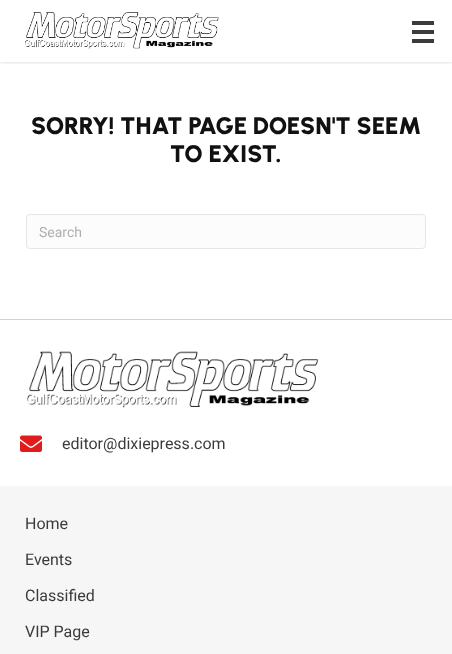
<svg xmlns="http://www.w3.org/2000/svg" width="452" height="654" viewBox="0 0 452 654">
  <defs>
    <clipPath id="clip1"><rect x="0" y="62" width="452" height="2"/></clipPath>
    <filter id="blur1" x="-50%" y="-200%" width="200%" height="500%"><feGaussianBlur stdDeviation="2"/></filter>
  </defs>
  <rect width="100%" height="100%" fill="#ffffff"/>
  <g clip-path="url(#clip1)">
    <rect x="0" y="0" width="452" height="62" fill="#000000" fill-opacity="0.18" filter="url(#blur1)"/>
  </g>
  <image x="25" y="12" width="194" height="37" href="img1.png"/>
  <rect x="412" y="21" width="22" height="4" fill="#3b3b3b"/>
  <rect x="412" y="30" width="22" height="4" fill="#3b3b3b"/>
  <rect x="412" y="39" width="22" height="4" fill="#3b3b3b"/>
  <text x="31" y="134" font-family="Urbanist" font-size="24" font-weight="900" fill="#111111">SORRY! THAT PAGE DOESN'T SEEM</text>
  <text x="170" y="162" font-family="Urbanist" font-size="24" font-weight="900" fill="#111111">TO EXIST.</text>
  <rect x="26.5" y="214.5" width="399" height="34" rx="3.5" fill="#fcfcfc" stroke="#e6e6e6"/>
  <text x="39" y="237" font-family="Roboto" font-size="14" fill="#afafaf">Search</text>
  <rect x="0" y="319" width="452" height="1" fill="#d2d2d2"/>
  <image x="27" y="351" width="292" height="57" href="img2.png"/>
  <image x="20" y="435" width="22" height="17" href="img3.png"/>
  <text x="62" y="449" font-family="Roboto" font-size="16" fill="#3b3b3b">editor@dixiepress.com</text>
  <rect x="0" y="486" width="452" height="168" fill="#f6f6f6"/>
  <text x="25" y="529" font-family="Roboto" font-size="16" fill="#3b3b3b">Home</text>
  <text x="25" y="565" font-family="Roboto" font-size="16" fill="#3b3b3b">Events</text>
  <text x="25" y="601" font-family="Roboto" font-size="16" fill="#3b3b3b">Classified</text>
  <text x="25" y="637" font-family="Roboto" font-size="16" fill="#3b3b3b">VIP Page</text>
</svg>
